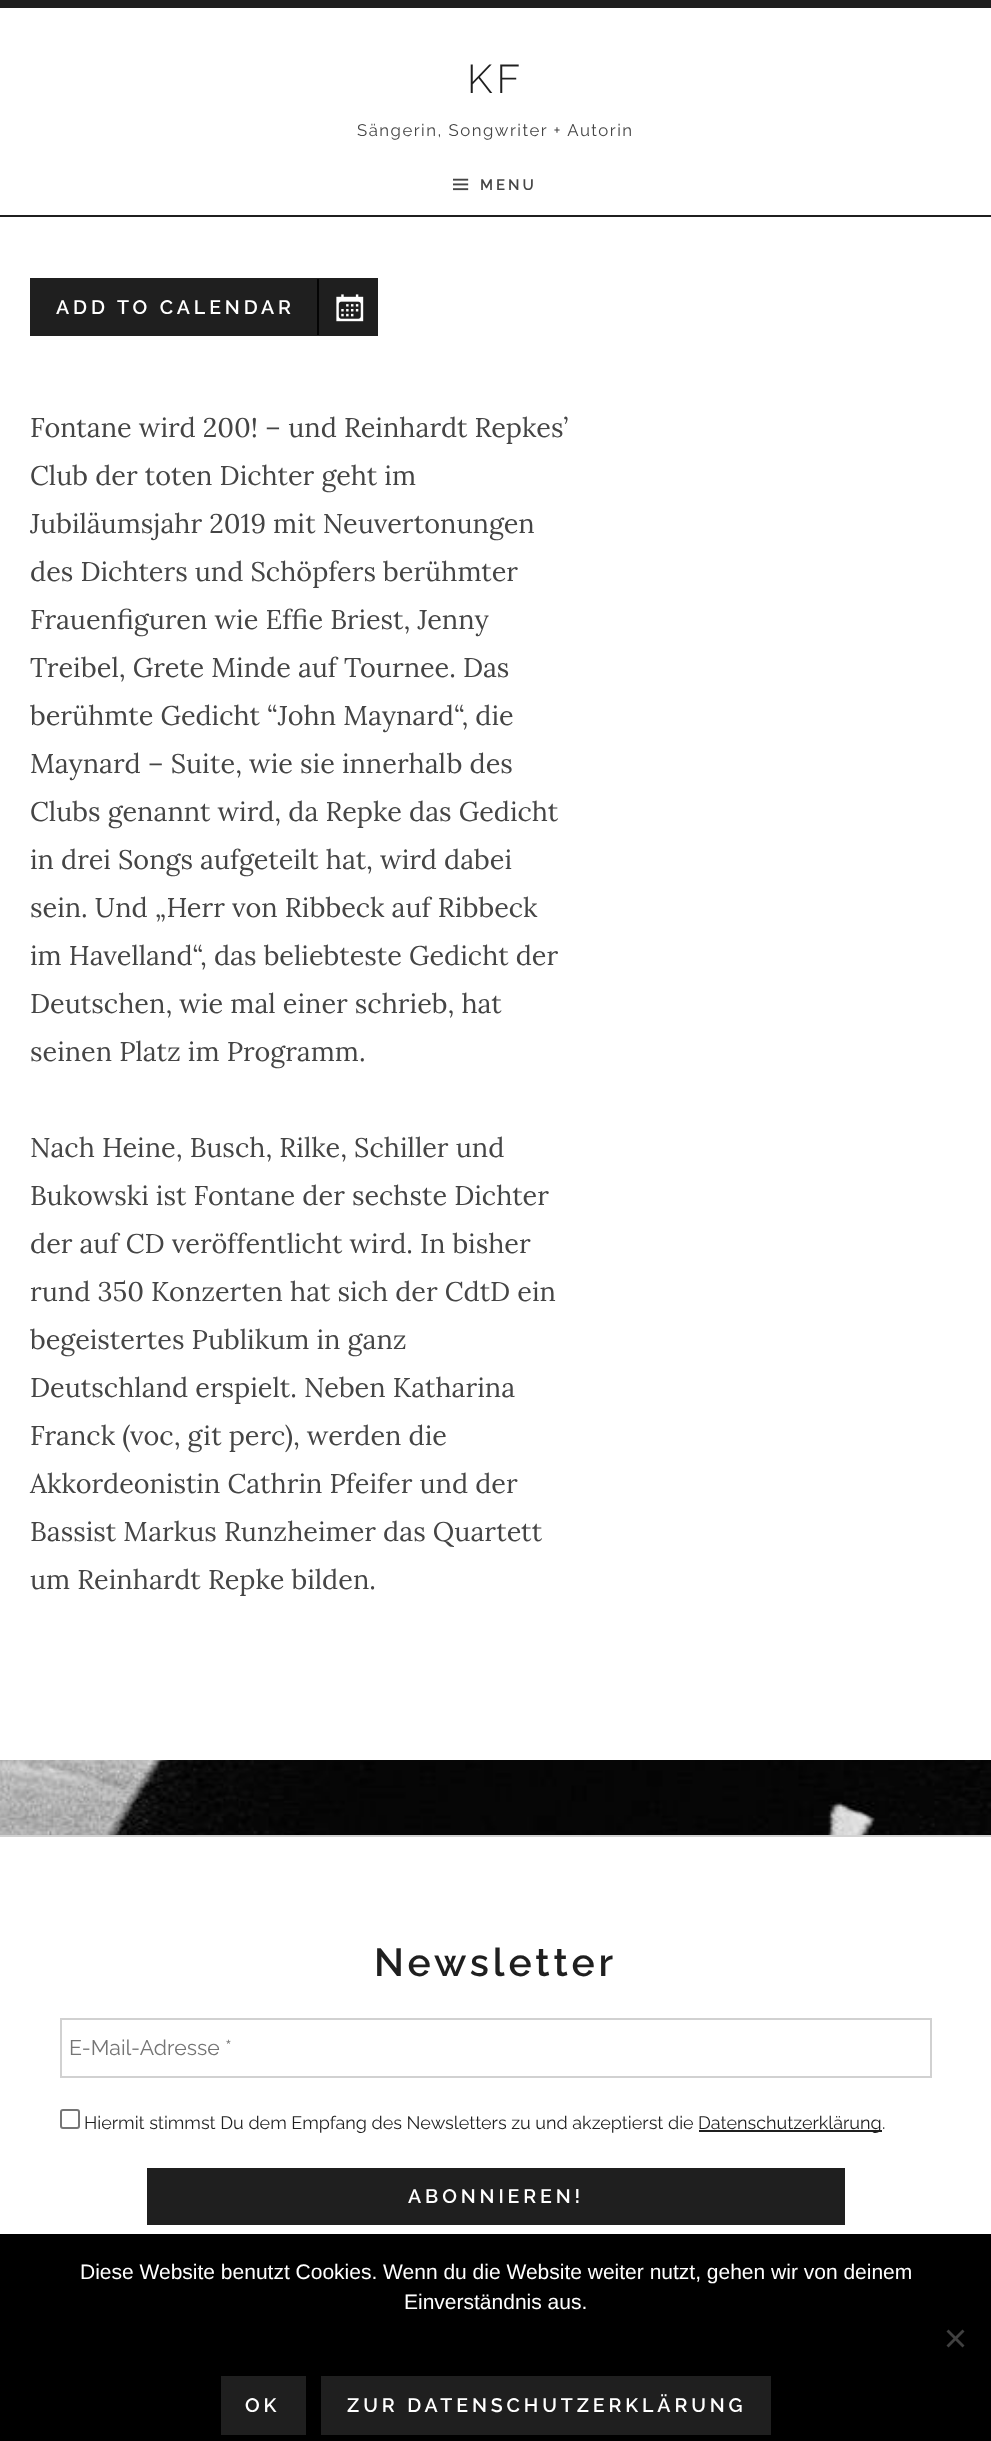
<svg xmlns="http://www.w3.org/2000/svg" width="991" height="2441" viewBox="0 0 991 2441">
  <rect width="100%" height="100%" fill="#ffffff"/>
  <image x="0" y="217" width="991" height="1618" href="img1.png"/>
  <rect x="0" y="0" width="991" height="8" fill="#1f1f1f"/>
  <rect x="0" y="215" width="991" height="2" fill="#1f1f1f"/>
  <text x="467" y="93" font-family="Raleway" font-size="40" font-weight="300" letter-spacing="4" fill="#1f1f1f">KF</text>
  <text x="357" y="136" font-family="Raleway" font-size="16.75" letter-spacing="1.5" fill="#454545">Sängerin, Songwriter + Autorin</text>
  <image x="453" y="178" width="16" height="13" href="img2.png"/>
  <text x="480" y="190" font-family="Raleway" font-size="15" font-weight="600" letter-spacing="3" fill="#454545">MENU</text>
  <rect x="0" y="217" width="991" height="1543" fill="#ffffff" fill-opacity="0.97"/>
  <rect x="0" y="217" width="991" height="1543" fill="#ffffff" fill-opacity="0.97"/>
  <rect x="30" y="278" width="348" height="58" fill="#1f1f1f"/>
  <text x="56" y="314" font-family="Raleway" font-size="19.5" font-weight="600" letter-spacing="3.9" fill="#ffffff">ADD TO CALENDAR</text>
  <rect x="317" y="279" width="2" height="56" fill="#040404"/>
  <image x="336" y="294" width="28" height="28" href="img3.png"/>
  <text x="30" y="437" font-family="Lora" font-size="27" fill="#454545">Fontane wird 200! – und Reinhardt Repkes’</text>
  <text x="30" y="485" font-family="Lora" font-size="27" fill="#454545">Club der toten Dichter geht im</text>
  <text x="30" y="533" font-family="Lora" font-size="27" fill="#454545">Jubiläumsjahr 2019 mit Neuvertonungen</text>
  <text x="30" y="581" font-family="Lora" font-size="27" fill="#454545">des Dichters und Schöpfers berühmter</text>
  <text x="30" y="629" font-family="Lora" font-size="27" fill="#454545">Frauenfiguren wie Effie Briest, Jenny</text>
  <text x="30" y="677" font-family="Lora" font-size="27" fill="#454545">Treibel, Grete Minde auf Tournee. Das</text>
  <text x="30" y="725" font-family="Lora" font-size="27" fill="#454545">berühmte Gedicht “John Maynard“, die</text>
  <text x="30" y="773" font-family="Lora" font-size="27" fill="#454545">Maynard – Suite, wie sie innerhalb des</text>
  <text x="30" y="821" font-family="Lora" font-size="27" fill="#454545">Clubs genannt wird, da Repke das Gedicht</text>
  <text x="30" y="869" font-family="Lora" font-size="27" fill="#454545">in drei Songs aufgeteilt hat, wird dabei</text>
  <text x="30" y="917" font-family="Lora" font-size="27" fill="#454545">sein. Und „Herr von Ribbeck auf Ribbeck</text>
  <text x="30" y="965" font-family="Lora" font-size="27" fill="#454545">im Havelland“, das beliebteste Gedicht der</text>
  <text x="30" y="1013" font-family="Lora" font-size="27" fill="#454545">Deutschen, wie mal einer schrieb, hat</text>
  <text x="30" y="1061" font-family="Lora" font-size="27" fill="#454545">seinen Platz im Programm.</text>
  <text x="30" y="1157" font-family="Lora" font-size="27" fill="#454545">Nach Heine, Busch, Rilke, Schiller und</text>
  <text x="30" y="1205" font-family="Lora" font-size="27" fill="#454545">Bukowski ist Fontane der sechste Dichter</text>
  <text x="30" y="1253" font-family="Lora" font-size="27" fill="#454545">der auf CD veröffentlicht wird. In bisher</text>
  <text x="30" y="1301" font-family="Lora" font-size="27" fill="#454545">rund 350 Konzerten hat sich der CdtD ein</text>
  <text x="30" y="1349" font-family="Lora" font-size="27" fill="#454545">begeistertes Publikum in ganz</text>
  <text x="30" y="1397" font-family="Lora" font-size="27" fill="#454545">Deutschland erspielt. Neben Katharina</text>
  <text x="30" y="1445" font-family="Lora" font-size="27" fill="#454545">Franck (voc, git perc), werden die</text>
  <text x="30" y="1493" font-family="Lora" font-size="27" fill="#454545">Akkordeonistin Cathrin Pfeifer und der</text>
  <text x="30" y="1541" font-family="Lora" font-size="27" fill="#454545">Bassist Markus Runzheimer das Quartett</text>
  <text x="30" y="1589" font-family="Lora" font-size="27" fill="#454545">um Reinhardt Repke bilden.</text>
  <rect x="0" y="1835" width="991" height="2" fill="#d1d1d1"/>
  <text x="374" y="1976" font-family="Raleway" font-size="39" font-weight="600" letter-spacing="3.9" fill="#1f1f1f">Newsletter</text>
  <rect x="61" y="2019" width="870" height="58" fill="none" stroke="#d1d1d1" stroke-width="2"/>
  <text x="69" y="2055" font-family="Raleway" font-size="21.25" fill="#757575">E-Mail-Adresse *</text>
  <rect x="61" y="2110" width="18" height="18" rx="2" fill="none" stroke="#767676" stroke-width="2"/>
  <text x="84" y="2129" font-family="Raleway" font-size="18" fill="#1f1f1f">Hiermit stimmst Du dem Empfang des Newsletters zu und akzeptierst die</text>
  <rect x="699" y="2130" width="183" height="2" fill="#1f1f1f"/>
  <text x="698" y="2129" font-family="Raleway" font-size="18" fill="#1f1f1f">Datenschutzerklärung</text>
  <text x="882" y="2129" font-family="Raleway" font-size="18" fill="#1f1f1f">.</text>
  <rect x="147" y="2168" width="698" height="57" fill="#1f1f1f"/>
  <text x="408" y="2203" font-family="Raleway" font-size="19.5" font-weight="600" letter-spacing="3.9" fill="#ffffff">ABONNIEREN!</text>
  <rect x="0" y="2234" width="991" height="207" fill="#000000"/>
  <text x="80" y="2279" font-family="Liberation Sans" font-size="21" fill="#ffffff">Diese Website benutzt Cookies. Wenn du die Website weiter nutzt, gehen wir von deinem</text>
  <text x="404" y="2309" font-family="Liberation Sans" font-size="21" fill="#ffffff">Einverständnis aus.</text>
  <path d="M962.5 2329.5L964.5 2331.5L948.5 2347.5L946.5 2345.5Z" fill="#404040"/>
  <path d="M946.5 2331.5L948.5 2329.5L964.5 2345.5L962.5 2347.5Z" fill="#404040"/>
  <rect x="221" y="2376" width="85" height="59" fill="#1f1f1f"/>
  <text x="245" y="2412" font-family="Raleway" font-size="19.5" font-weight="600" letter-spacing="3.9" fill="#ffffff">OK</text>
  <rect x="321" y="2376" width="450" height="59" fill="#1f1f1f"/>
  <text x="347" y="2412" font-family="Raleway" font-size="19.5" font-weight="600" letter-spacing="3.9" fill="#ffffff">ZUR DATENSCHUTZERKLÄRUNG</text>
</svg>
